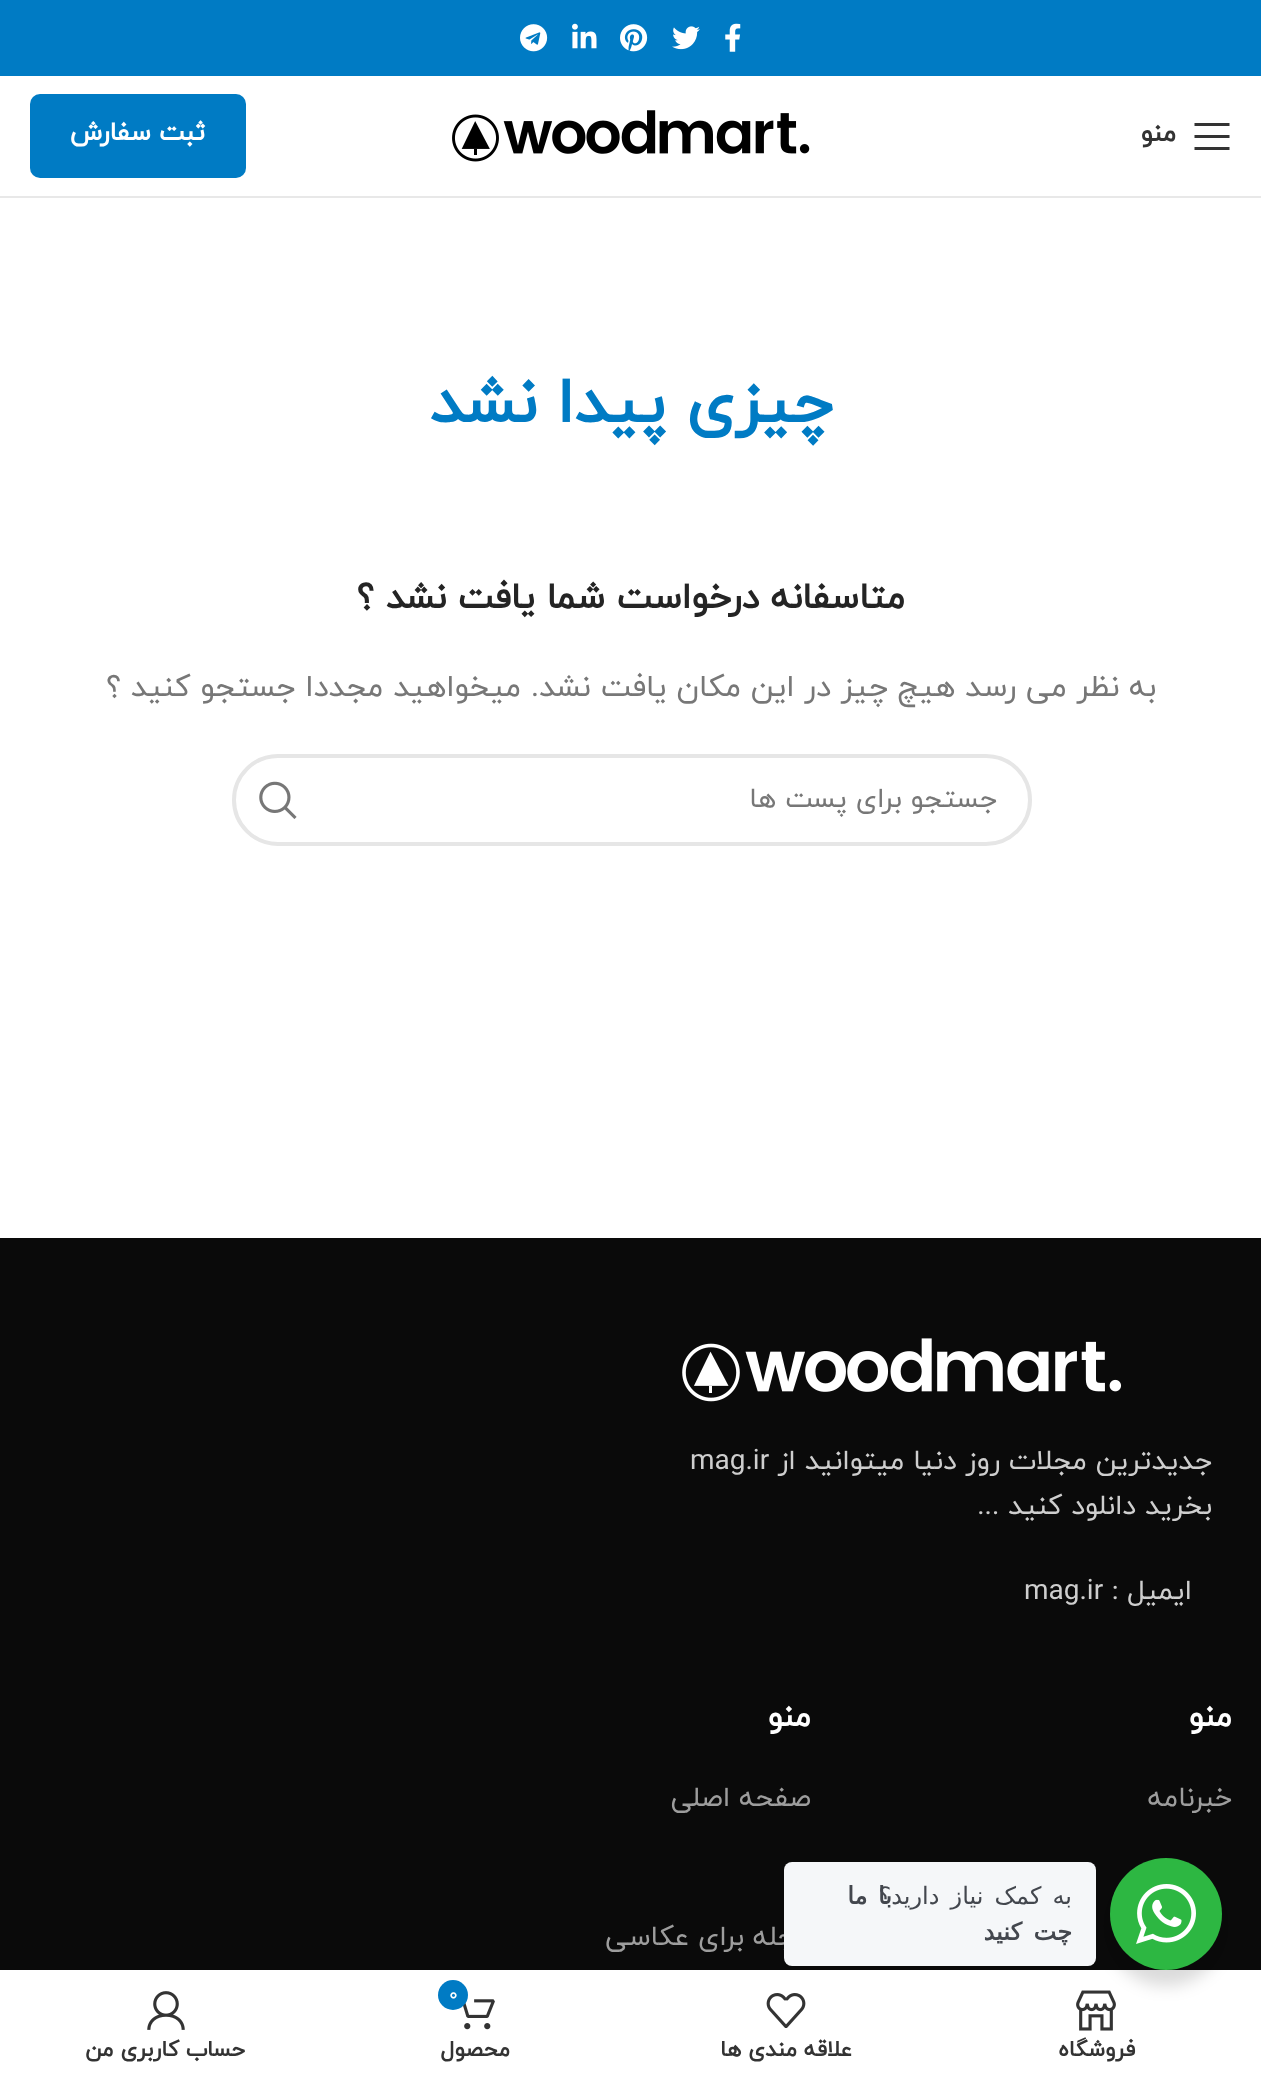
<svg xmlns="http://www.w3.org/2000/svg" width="1261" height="2079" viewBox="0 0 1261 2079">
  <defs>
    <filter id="blur1" x="-50%" y="-200%" width="200%" height="500%"><feGaussianBlur stdDeviation="8"/></filter>
  </defs>
  <rect width="100%" height="100%" fill="#ffffff"/>
  <rect x="0" y="0" width="1261" height="76" fill="#007bc4"/>
  <image x="725" y="23" width="16" height="29" href="img1.png"/>
  <image x="672" y="26" width="28" height="24" href="img2.png"/>
  <image x="620" y="24" width="28" height="28" href="img3.png"/>
  <image x="572" y="23" width="25" height="26" href="img4.png"/>
  <image x="520" y="24" width="28" height="28" href="img5.png"/>
  <rect x="0" y="196" width="1261" height="2" fill="#e8e8e8"/>
  <path d="M1194.5 126H1229.5V123H1194.5ZM1194.5 138H1229.5V135H1194.5ZM1194.5 150H1229.5V147H1194.5Z" fill="#333333"/>
  <text x="1176" y="141" font-family="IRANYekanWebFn" font-size="26" font-weight="bold" direction="rtl" fill="#333333">منو</text>
  <image x="452" y="110" width="358" height="52" href="img6.png"/>
  <rect x="30" y="94" width="216" height="84" rx="10" fill="#007bc4"/>
  <text x="205" y="140" font-family="IRANYekanWebFn" font-size="26" font-weight="bold" direction="rtl" fill="#ffffff">ثبت سفارش</text>
  <text x="833" y="422" font-family="IRANYekanWebFn" font-size="64" font-weight="bold" direction="rtl" fill="#007bc4">چیزی پیدا نشد</text>
  <text x="905" y="608" font-family="IRANYekanWebFn" font-size="36" font-weight="bold" direction="rtl" fill="#242424">متاسفانه درخواست شما یافت نشد ؟</text>
  <text x="1156" y="696" font-family="IRANYekanWebFn" font-size="30.8" direction="rtl" fill="#777777">به نظر می رسد هیچ چیز در این مکان یافت نشد. میخواهید مجددا جستجو کنید ؟</text>
  <rect x="234" y="756" width="796" height="88" rx="44" fill="none" stroke="#e6e6e6" stroke-width="4"/>
  <text x="997" y="807" font-family="IRANYekanWebFn" font-size="28" direction="rtl" fill="#777777">جستجو برای پست ها</text>
  <image x="259" y="781" width="38" height="38" href="img7.png"/>
  <rect x="0" y="1238" width="1261" height="732" fill="#0a0a0a"/>
  <image x="682" y="1338" width="440" height="64" href="img8.png"/>
  <text x="1212" y="1469" font-family="IRANYekanWebFn" font-size="28" direction="rtl" fill="#cecece">جدیدترین مجلات روز دنیا میتوانید از</text>
  <text x="690" y="1469" font-family="IRANYekanWebFn" font-size="28" fill="#cecece">mag.ir</text>
  <text x="1212" y="1514" font-family="IRANYekanWebFn" font-size="28" direction="rtl" fill="#cecece">بخرید دانلود کنید ...</text>
  <text x="1192" y="1599" font-family="IRANYekanWebFn" font-size="28" direction="rtl" fill="#cecece">ایمیل :</text>
  <text x="1024" y="1599" font-family="IRANYekanWebFn" font-size="28" fill="#cecece">mag.ir</text>
  <text x="1232" y="1726" font-family="IRANYekanWebFn" font-size="32" font-weight="bold" direction="rtl" fill="#ffffff">منو</text>
  <text x="1232" y="1806" font-family="IRANYekanWebFn" font-size="28" direction="rtl" fill="#9d9d9d">خبرنامه</text>
  <text x="811" y="1726" font-family="IRANYekanWebFn" font-size="32" font-weight="bold" direction="rtl" fill="#ffffff">منو</text>
  <text x="811" y="1806" font-family="IRANYekanWebFn" font-size="28" direction="rtl" fill="#9d9d9d">صفحه اصلی</text>
  <text x="811" y="1945" font-family="IRANYekanWebFn" font-size="28" direction="rtl" fill="#9d9d9d">مجله برای عکاسی</text>
  <image x="1076" y="1990" width="40" height="41" href="img10.png"/>
  <rect x="1106" y="1866" width="120" height="120" rx="60" fill="#000000" fill-opacity="0.14" filter="url(#blur1)"/>
  <circle cx="1166" cy="1914" r="56" fill="#2db742"/>
  <image x="1136" y="1884" width="60" height="60" href="img9.png"/>
  <rect x="784" y="1862" width="312" height="104" rx="8" fill="#f5f7f9"/>
  <text x="1072" y="1904" word-spacing="3.5" font-family="DejaVu Sans" font-size="24" letter-spacing="-0.75" direction="rtl" fill="#43474e">به کمک نیاز دارید؟</text>
  <text x="892" y="1904" word-spacing="3" font-family="DejaVu Sans" font-size="24" font-weight="bold" letter-spacing="-0.75" direction="rtl" fill="#43474e">با ما</text>
  <text x="1072" y="1940" word-spacing="4" font-family="DejaVu Sans" font-size="24" font-weight="bold" letter-spacing="-0.75" direction="rtl" fill="#43474e">چت کنید</text>
  <text x="1135" y="2056" font-family="IRANYekanWebFn" font-size="22" font-weight="bold" direction="rtl" fill="#333333">فروشگاه</text>
  <image x="766" y="1993" width="40" height="35" href="img11.png"/>
  <text x="852" y="2056" font-family="IRANYekanWebFn" font-size="22" font-weight="bold" direction="rtl" fill="#333333">علاقه مندی ها</text>
  <image x="463" y="1999" width="32" height="31" href="img12.png"/>
  <circle cx="453" cy="1995" r="15" fill="#007bc4"/>
  <text x="449" y="2000" font-family="IRANYekanWebFn" font-size="18" fill="#ffffff">0</text>
  <text x="510" y="2056" font-family="IRANYekanWebFn" font-size="22" font-weight="bold" direction="rtl" fill="#333333">محصول</text>
  <image x="147" y="1991" width="38" height="39" href="img13.png"/>
  <text x="245" y="2056" font-family="IRANYekanWebFn" font-size="22" font-weight="bold" direction="rtl" fill="#333333">حساب کاربری من</text>
</svg>
